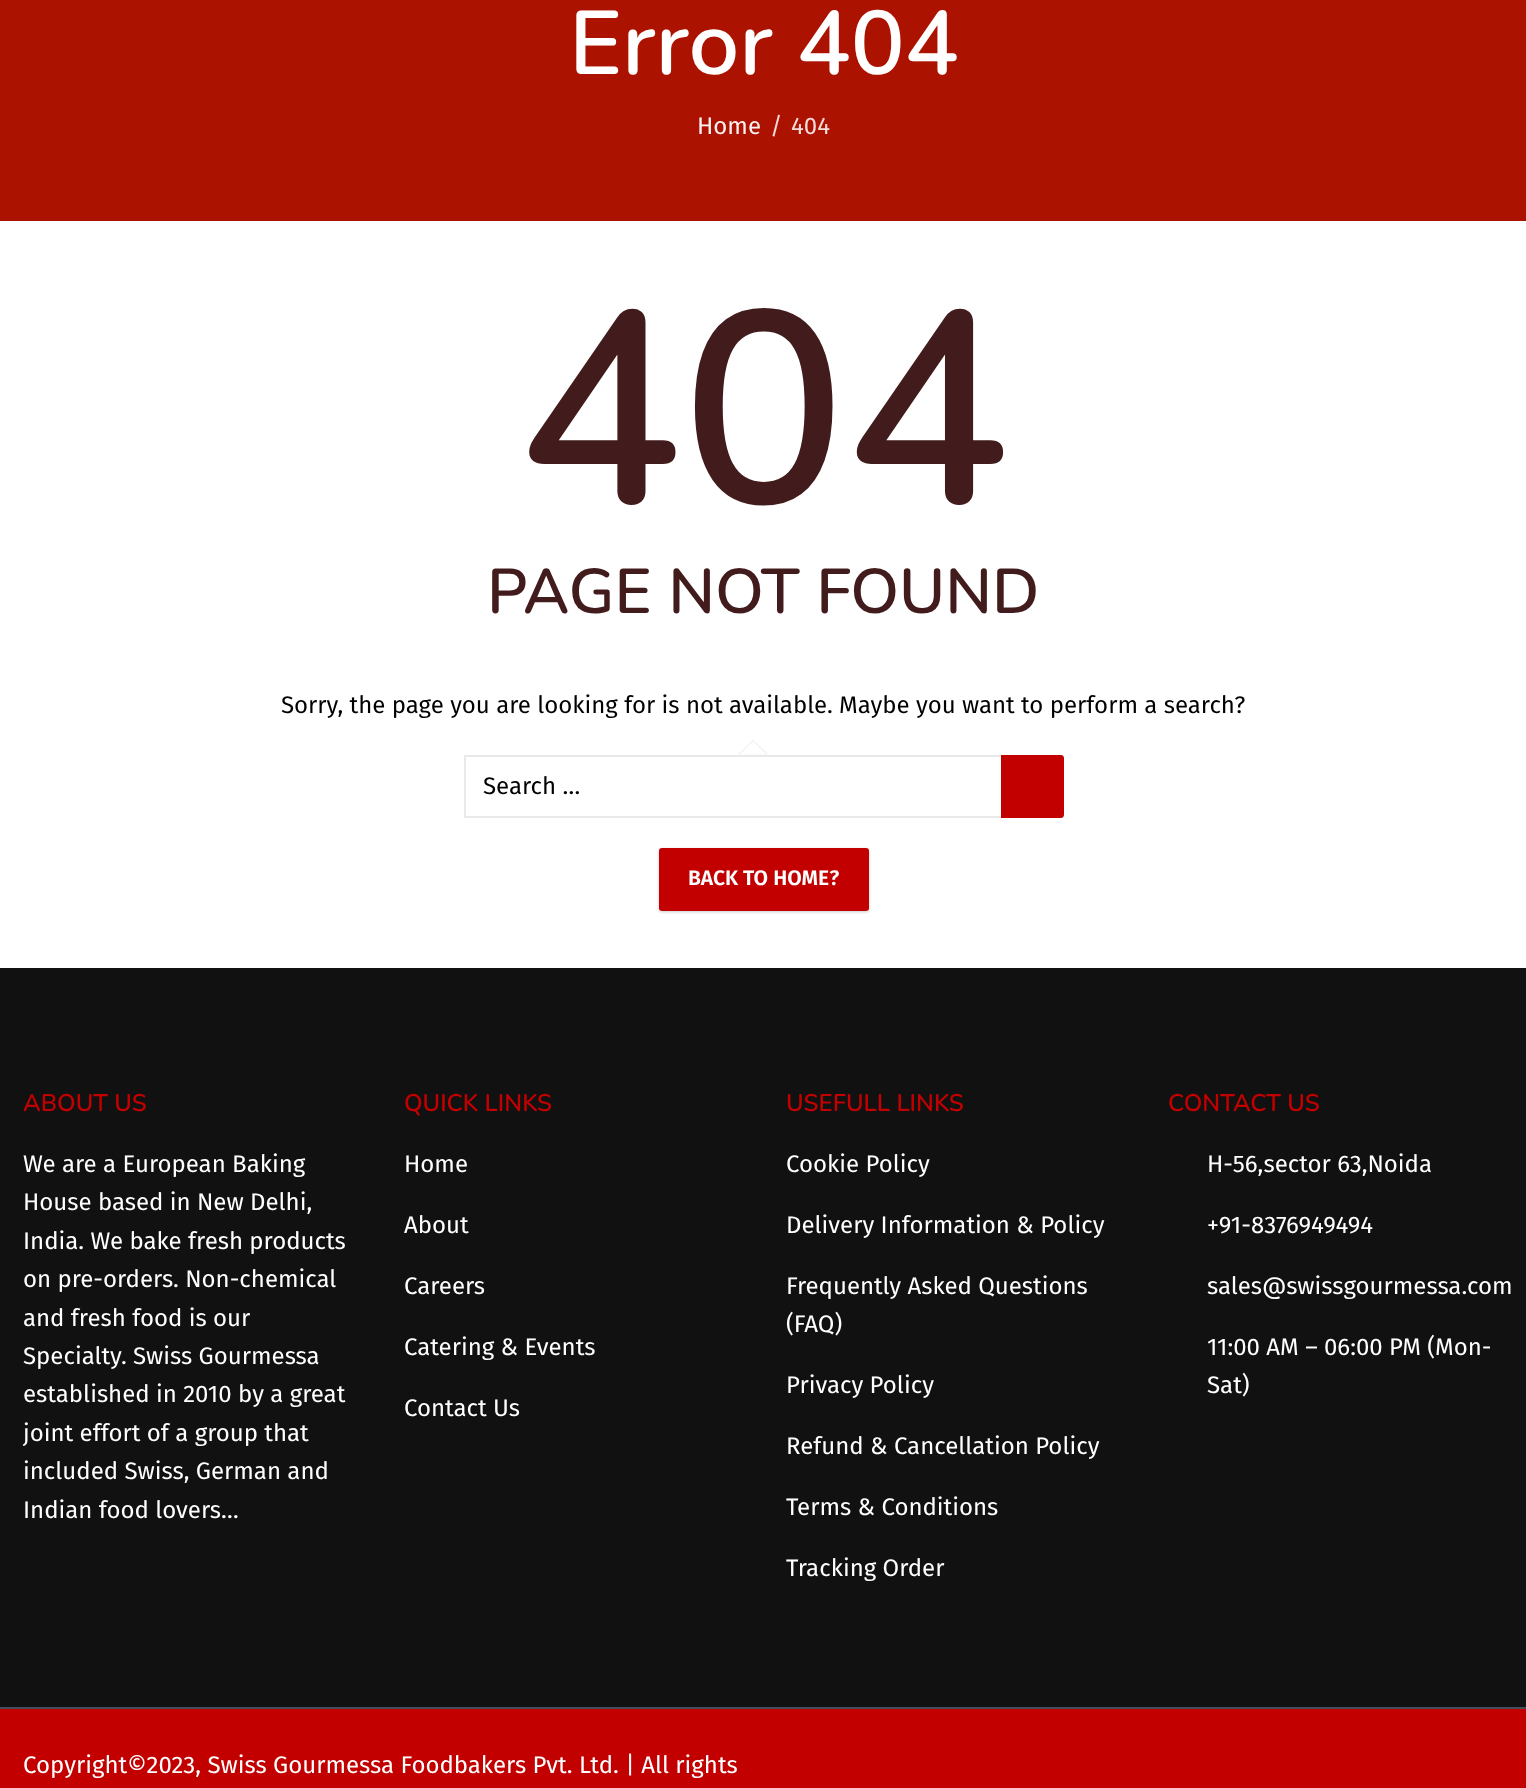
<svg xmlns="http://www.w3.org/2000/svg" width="1526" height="1788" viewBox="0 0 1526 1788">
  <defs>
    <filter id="blur1" x="-50%" y="-200%" width="200%" height="500%"><feGaussianBlur stdDeviation="1.5"/></filter>
  </defs>
  <rect width="100%" height="100%" fill="#ffffff"/>
  <rect x="0" y="0" width="1526" height="221" fill="#ac1200"/>
  <text x="569" y="74" font-family="Nunito" font-size="90" font-weight="600" fill="#ffffff">Error 404</text>
  <text x="697" y="134" font-family="Fira Sans" font-size="24" fill="#fbf3f2">Home</text>
  <text x="770" y="134" font-family="Fira Sans" font-size="24" fill="#f3dbd9">/</text>
  <text x="791" y="134" font-family="Fira Sans" font-size="24" fill="#f3dbd9">404</text>
  <text x="518" y="503" font-family="Nunito" font-size="273" font-weight="600" fill="#421c1c">404</text>
  <text x="487" y="613" font-family="Nunito" font-size="63" font-weight="600" fill="#421c1c">PAGE NOT FOUND</text>
  <text x="281" y="713" font-family="Fira Sans" font-size="24" fill="#000000">Sorry, the page you are looking for is not available. Maybe you want to perform a search?</text>
  <path d="M768 754.5H738L753 739.5Z" fill="#f0f0f0"/>
  <path d="M766.5 754.5H739.5L753 741Z" fill="#ffffff"/>
  <rect x="465" y="756" width="598" height="61" fill="none" stroke="#e9e9e9" stroke-width="2"/>
  <text x="483" y="794" font-family="Fira Sans" font-size="24" fill="#000000">Search …</text>
  <path d="M1001 755H1061C1062.5 755 1064 756.5 1064 758V815C1064 816.5 1062.5 818 1061 818H1001Z" fill="#c20000"/>
  <rect x="659" y="849" width="210" height="63" rx="3" fill="#000000" fill-opacity="0.2" filter="url(#blur1)"/>
  <rect x="659" y="848" width="210" height="63" rx="3" fill="#c20000"/>
  <text x="688" y="885" font-family="Fira Sans" font-size="21" font-weight="600" fill="#ffffff">BACK TO HOME?</text>
  <rect x="0" y="968" width="1526" height="739" fill="#111111"/>
  <text x="23" y="1111" font-family="Nunito" font-size="24" font-weight="600" fill="#c20000">ABOUT US</text>
  <text x="23" y="1172" font-family="Fira Sans" font-size="24" fill="#ffffff">We are a European Baking</text>
  <text x="23" y="1210" font-family="Fira Sans" font-size="24" fill="#ffffff">House based in New Delhi,</text>
  <text x="23" y="1249" font-family="Fira Sans" font-size="24" fill="#ffffff">India. We bake fresh products</text>
  <text x="23" y="1287" font-family="Fira Sans" font-size="24" fill="#ffffff">on pre-orders. Non-chemical</text>
  <text x="23" y="1326" font-family="Fira Sans" font-size="24" fill="#ffffff">and fresh food is our</text>
  <text x="23" y="1364" font-family="Fira Sans" font-size="24" fill="#ffffff">Specialty. Swiss Gourmessa</text>
  <text x="23" y="1402" font-family="Fira Sans" font-size="24" fill="#ffffff">established in 2010 by a great</text>
  <text x="23" y="1441" font-family="Fira Sans" font-size="24" fill="#ffffff">joint effort of a group that</text>
  <text x="23" y="1479" font-family="Fira Sans" font-size="24" fill="#ffffff">included Swiss, German and</text>
  <text x="23" y="1518" font-family="Fira Sans" font-size="24" fill="#ffffff">Indian food lovers…</text>
  <text x="404" y="1111" font-family="Nunito" font-size="24" font-weight="600" fill="#c20000">QUICK LINKS</text>
  <text x="404" y="1172" font-family="Fira Sans" font-size="24" fill="#ffffff">Home</text>
  <text x="404" y="1233" font-family="Fira Sans" font-size="24" fill="#ffffff">About</text>
  <text x="404" y="1294" font-family="Fira Sans" font-size="24" fill="#ffffff">Careers</text>
  <text x="404" y="1355" font-family="Fira Sans" font-size="24" fill="#ffffff">Catering &amp; Events</text>
  <text x="404" y="1416" font-family="Fira Sans" font-size="24" fill="#ffffff">Contact Us</text>
  <text x="786" y="1111" font-family="Nunito" font-size="24" font-weight="600" fill="#c20000">USEFULL LINKS</text>
  <text x="786" y="1172" font-family="Fira Sans" font-size="24" fill="#ffffff">Cookie Policy</text>
  <text x="786" y="1233" font-family="Fira Sans" font-size="24" fill="#ffffff">Delivery Information &amp; Policy</text>
  <text x="786" y="1294" font-family="Fira Sans" font-size="24" fill="#ffffff">Frequently Asked Questions</text>
  <text x="786" y="1332" font-family="Fira Sans" font-size="24" fill="#ffffff">(FAQ)</text>
  <text x="786" y="1393" font-family="Fira Sans" font-size="24" fill="#ffffff">Privacy Policy</text>
  <text x="786" y="1454" font-family="Fira Sans" font-size="24" fill="#ffffff">Refund &amp; Cancellation Policy</text>
  <text x="786" y="1515" font-family="Fira Sans" font-size="24" fill="#ffffff">Terms &amp; Conditions</text>
  <text x="786" y="1576" font-family="Fira Sans" font-size="24" fill="#ffffff">Tracking Order</text>
  <text x="1168" y="1111" font-family="Nunito" font-size="24" font-weight="600" fill="#c20000">CONTACT US</text>
  <text x="1207" y="1172" font-family="Fira Sans" font-size="24" fill="#ffffff">H-56,sector 63,Noida</text>
  <text x="1207" y="1233" font-family="Fira Sans" font-size="24" fill="#ffffff">+91-8376949494</text>
  <text x="1207" y="1294" font-family="Fira Sans" font-size="24" fill="#ffffff">sales@swissgourmessa.com</text>
  <text x="1207" y="1355" font-family="Fira Sans" font-size="24" fill="#ffffff">11:00 AM – 06:00 PM (Mon-</text>
  <text x="1207" y="1393" font-family="Fira Sans" font-size="24" fill="#ffffff">Sat)</text>
  <rect x="0" y="1709" width="1526" height="79" fill="#c20000"/>
  <rect x="0" y="1707" width="1526" height="2" fill="#454d5e"/>
  <text x="23" y="1773" font-family="Fira Sans" font-size="24" fill="#ffffff">Copyright©2023, Swiss Gourmessa Foodbakers Pvt. Ltd. | All rights</text>
</svg>
